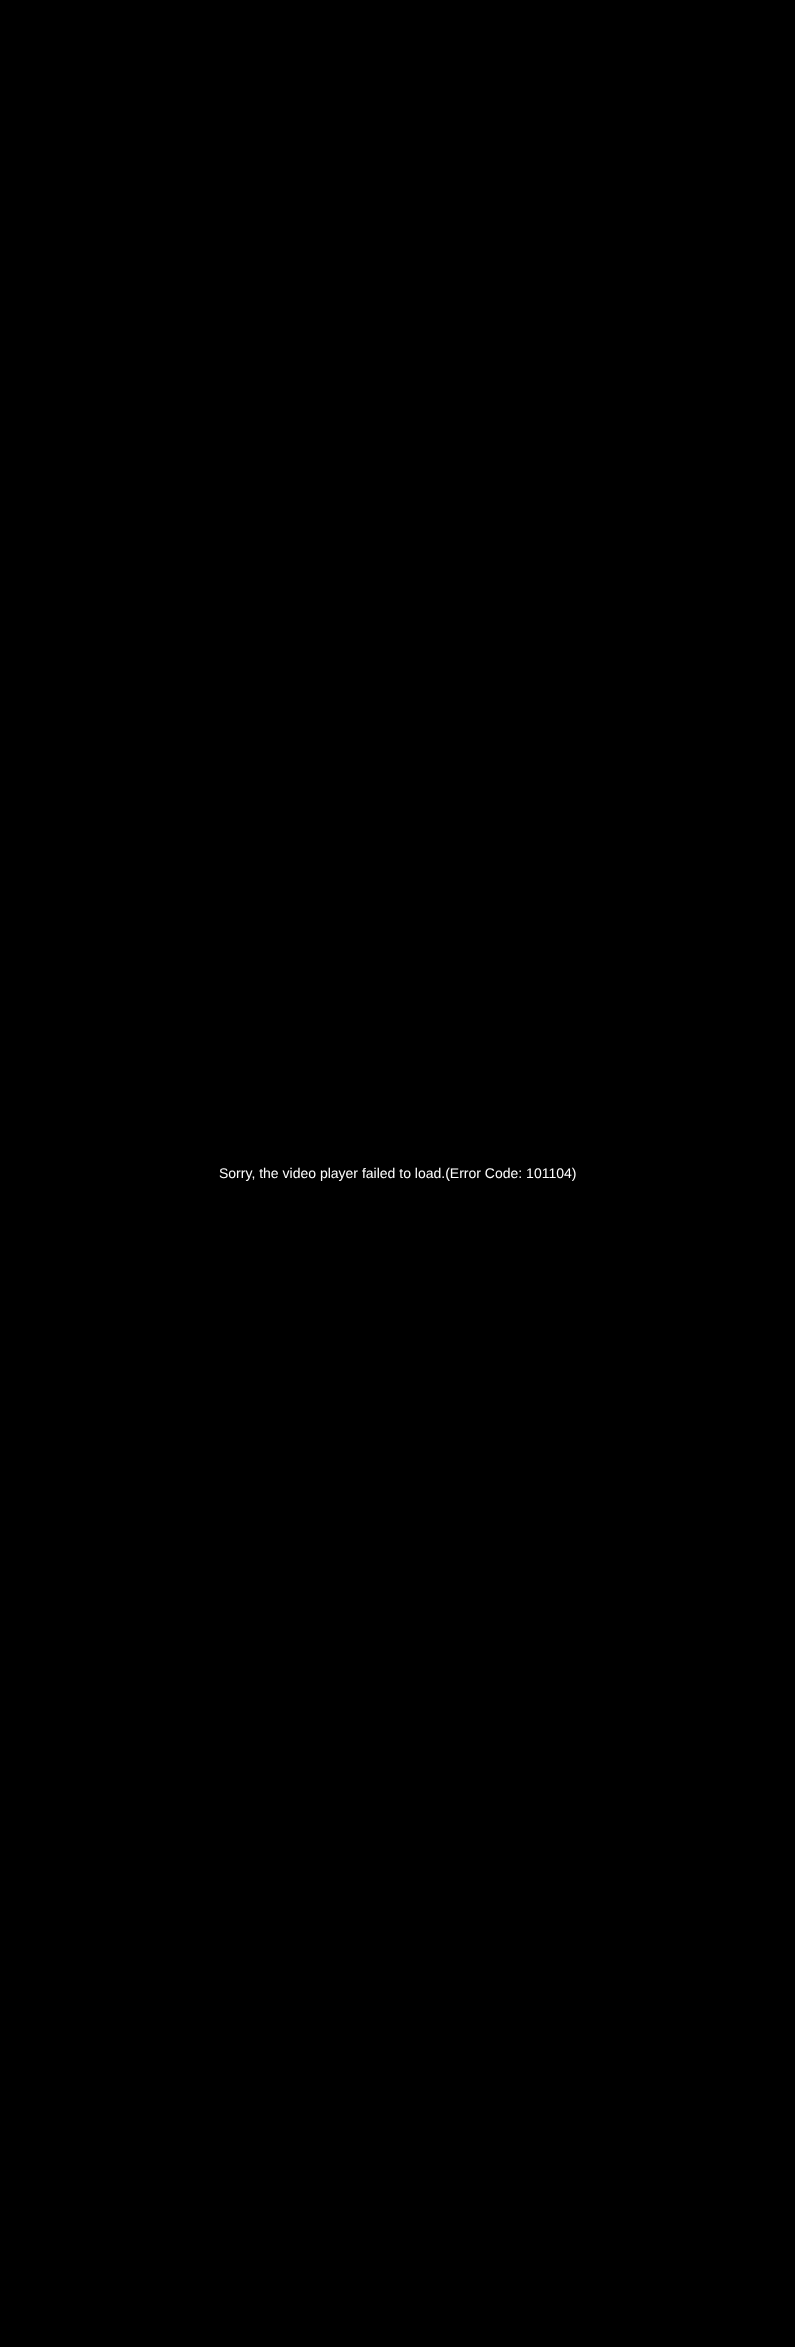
<svg xmlns="http://www.w3.org/2000/svg" width="795" height="2347" viewBox="0 0 795 2347">
  <rect width="100%" height="100%" fill="#000000"/>
  <text x="219" y="1178" font-family="Liberation Sans" font-size="14" fill="#ffffff">Sorry, the video player failed to load.(Error Code: 101104)</text>
</svg>
